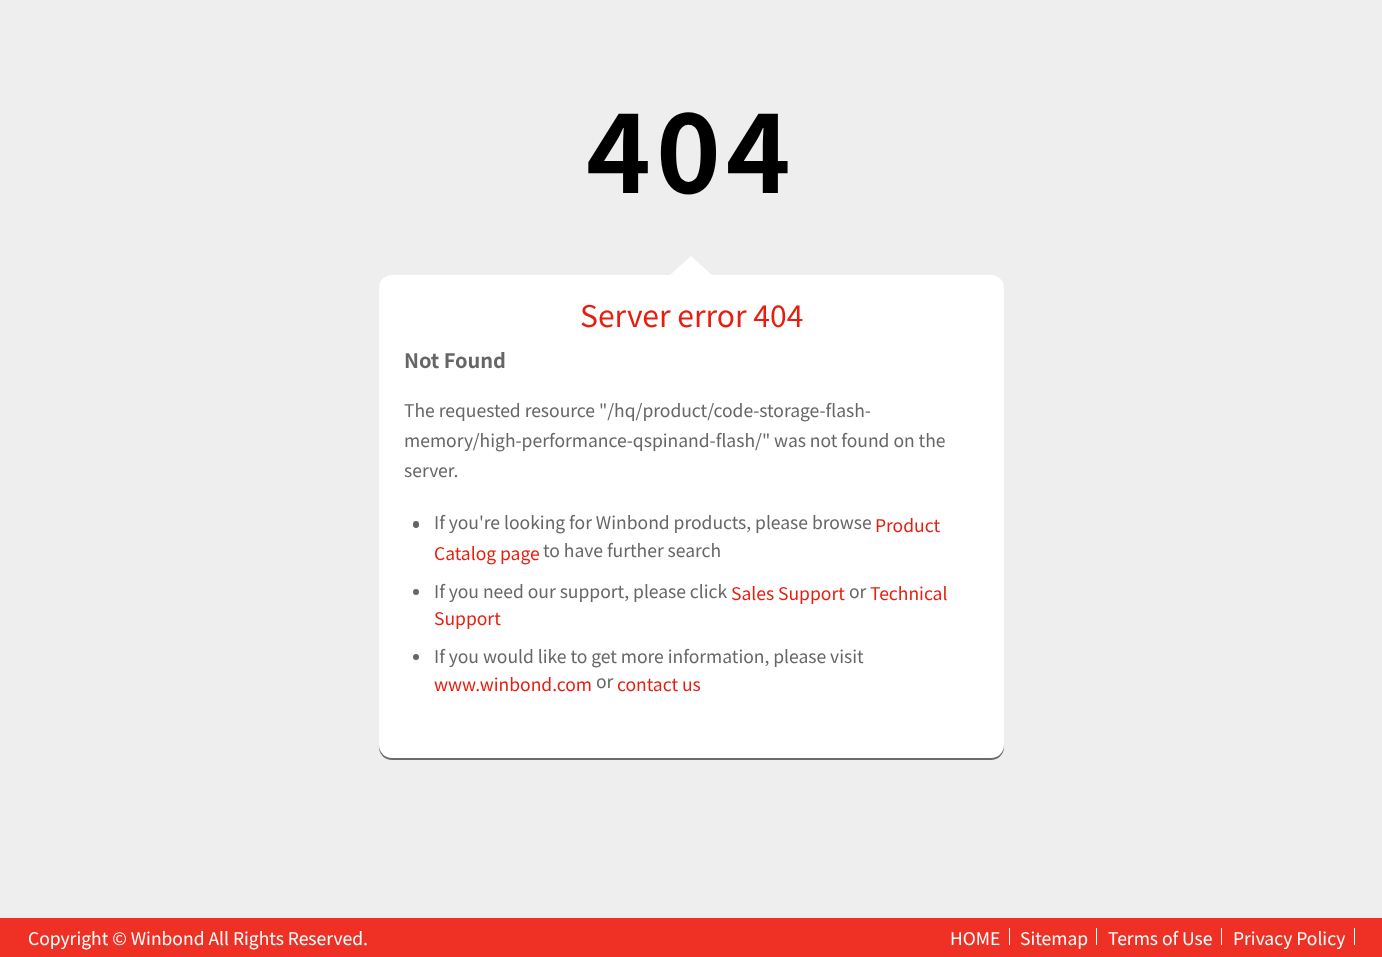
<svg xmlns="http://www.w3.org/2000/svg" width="1382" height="957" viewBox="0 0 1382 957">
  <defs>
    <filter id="blur1" x="-50%" y="-200%" width="200%" height="500%"><feGaussianBlur stdDeviation="0.5"/></filter>
  </defs>
  <rect width="100%" height="100%" fill="#eeeeee"/>
  <text x="586" y="193" font-family="Noto Sans TC" font-size="110" font-weight="bold" letter-spacing="5" fill="#000000">404</text>
  <rect x="379" y="278" width="625" height="482" rx="13" fill="#000000" fill-opacity="0.55" filter="url(#blur1)"/>
  <rect x="379" y="275" width="625" height="483" rx="13" fill="#ffffff"/>
  <path d="M712 275H670L691 256Z" fill="#ffffff"/>
  <text x="580" y="327" font-family="Noto Sans TC" font-size="30" fill="#e71e0f">Server error 404</text>
  <text x="404" y="368" font-family="Noto Sans TC" font-size="20" font-weight="bold" fill="#666666">Not Found</text>
  <text x="404" y="417" font-family="Noto Sans TC" font-size="17.5" fill="#666666">The requested resource "/hq/product/code-storage-flash-</text>
  <text x="404" y="447" font-family="Noto Sans TC" font-size="17.5" fill="#666666">memory/high-performance-qspinand-flash/" was not found on the</text>
  <text x="404" y="477" font-family="Noto Sans TC" font-size="17.5" fill="#666666">server.</text>
  <rect x="413" y="521" width="6" height="7" rx="3" fill="#666666"/>
  <text x="434" y="529" font-family="Noto Sans TC" font-size="17.5" fill="#666666">If you're looking for Winbond products, please browse</text>
  <text x="875" y="532" font-family="Noto Sans TC" font-size="17.5" fill="#e71e0f">Product</text>
  <text x="434" y="560" font-family="Noto Sans TC" font-size="17.5" fill="#e71e0f">Catalog page</text>
  <text x="543" y="557" font-family="Noto Sans TC" font-size="17.5" fill="#666666">to have further search</text>
  <circle cx="416" cy="592" r="3" fill="#666666"/>
  <text x="434" y="598" font-family="Noto Sans TC" font-size="17.5" fill="#666666">If you need our support, please click</text>
  <text x="731" y="600" font-family="Noto Sans TC" font-size="17.5" fill="#e71e0f">Sales Support</text>
  <text x="849" y="598" font-family="Noto Sans TC" font-size="17.5" fill="#666666">or</text>
  <text x="870" y="600" font-family="Noto Sans TC" font-size="17.5" fill="#e71e0f">Technical</text>
  <text x="434" y="625" font-family="Noto Sans TC" font-size="17.5" fill="#e71e0f">Support</text>
  <circle cx="416" cy="657" r="3" fill="#666666"/>
  <text x="434" y="663" font-family="Noto Sans TC" font-size="17.5" fill="#666666">If you would like to get more information, please visit</text>
  <text x="434" y="691" font-family="Noto Sans TC" font-size="17.5" fill="#e71e0f">www.winbond.com</text>
  <text x="596" y="688" font-family="Noto Sans TC" font-size="17.5" fill="#666666">or</text>
  <text x="617" y="691" font-family="Noto Sans TC" font-size="17.5" fill="#e71e0f">contact us</text>
  <rect x="0" y="918" width="1382" height="39" fill="#ef3125"/>
  <text x="28" y="945" font-family="Noto Sans TC" font-size="17.5" fill="#ffffff">Copyright © Winbond All Rights Reserved.</text>
  <text x="950" y="945" font-family="Noto Sans TC" font-size="17.5" fill="#ffffff">HOME</text>
  <rect x="1009" y="928" width="1" height="17" fill="#ffffff"/>
  <text x="1020" y="945" font-family="Noto Sans TC" font-size="17.5" fill="#ffffff">Sitemap</text>
  <rect x="1096" y="928" width="1" height="17" fill="#ffffff"/>
  <text x="1108" y="945" font-family="Noto Sans TC" font-size="17.5" fill="#ffffff">Terms of Use</text>
  <rect x="1221" y="928" width="1" height="17" fill="#ffffff"/>
  <text x="1233" y="945" font-family="Noto Sans TC" font-size="17.5" fill="#ffffff">Privacy Policy</text>
  <rect x="1354" y="928" width="1" height="17" fill="#ffffff"/>
</svg>
